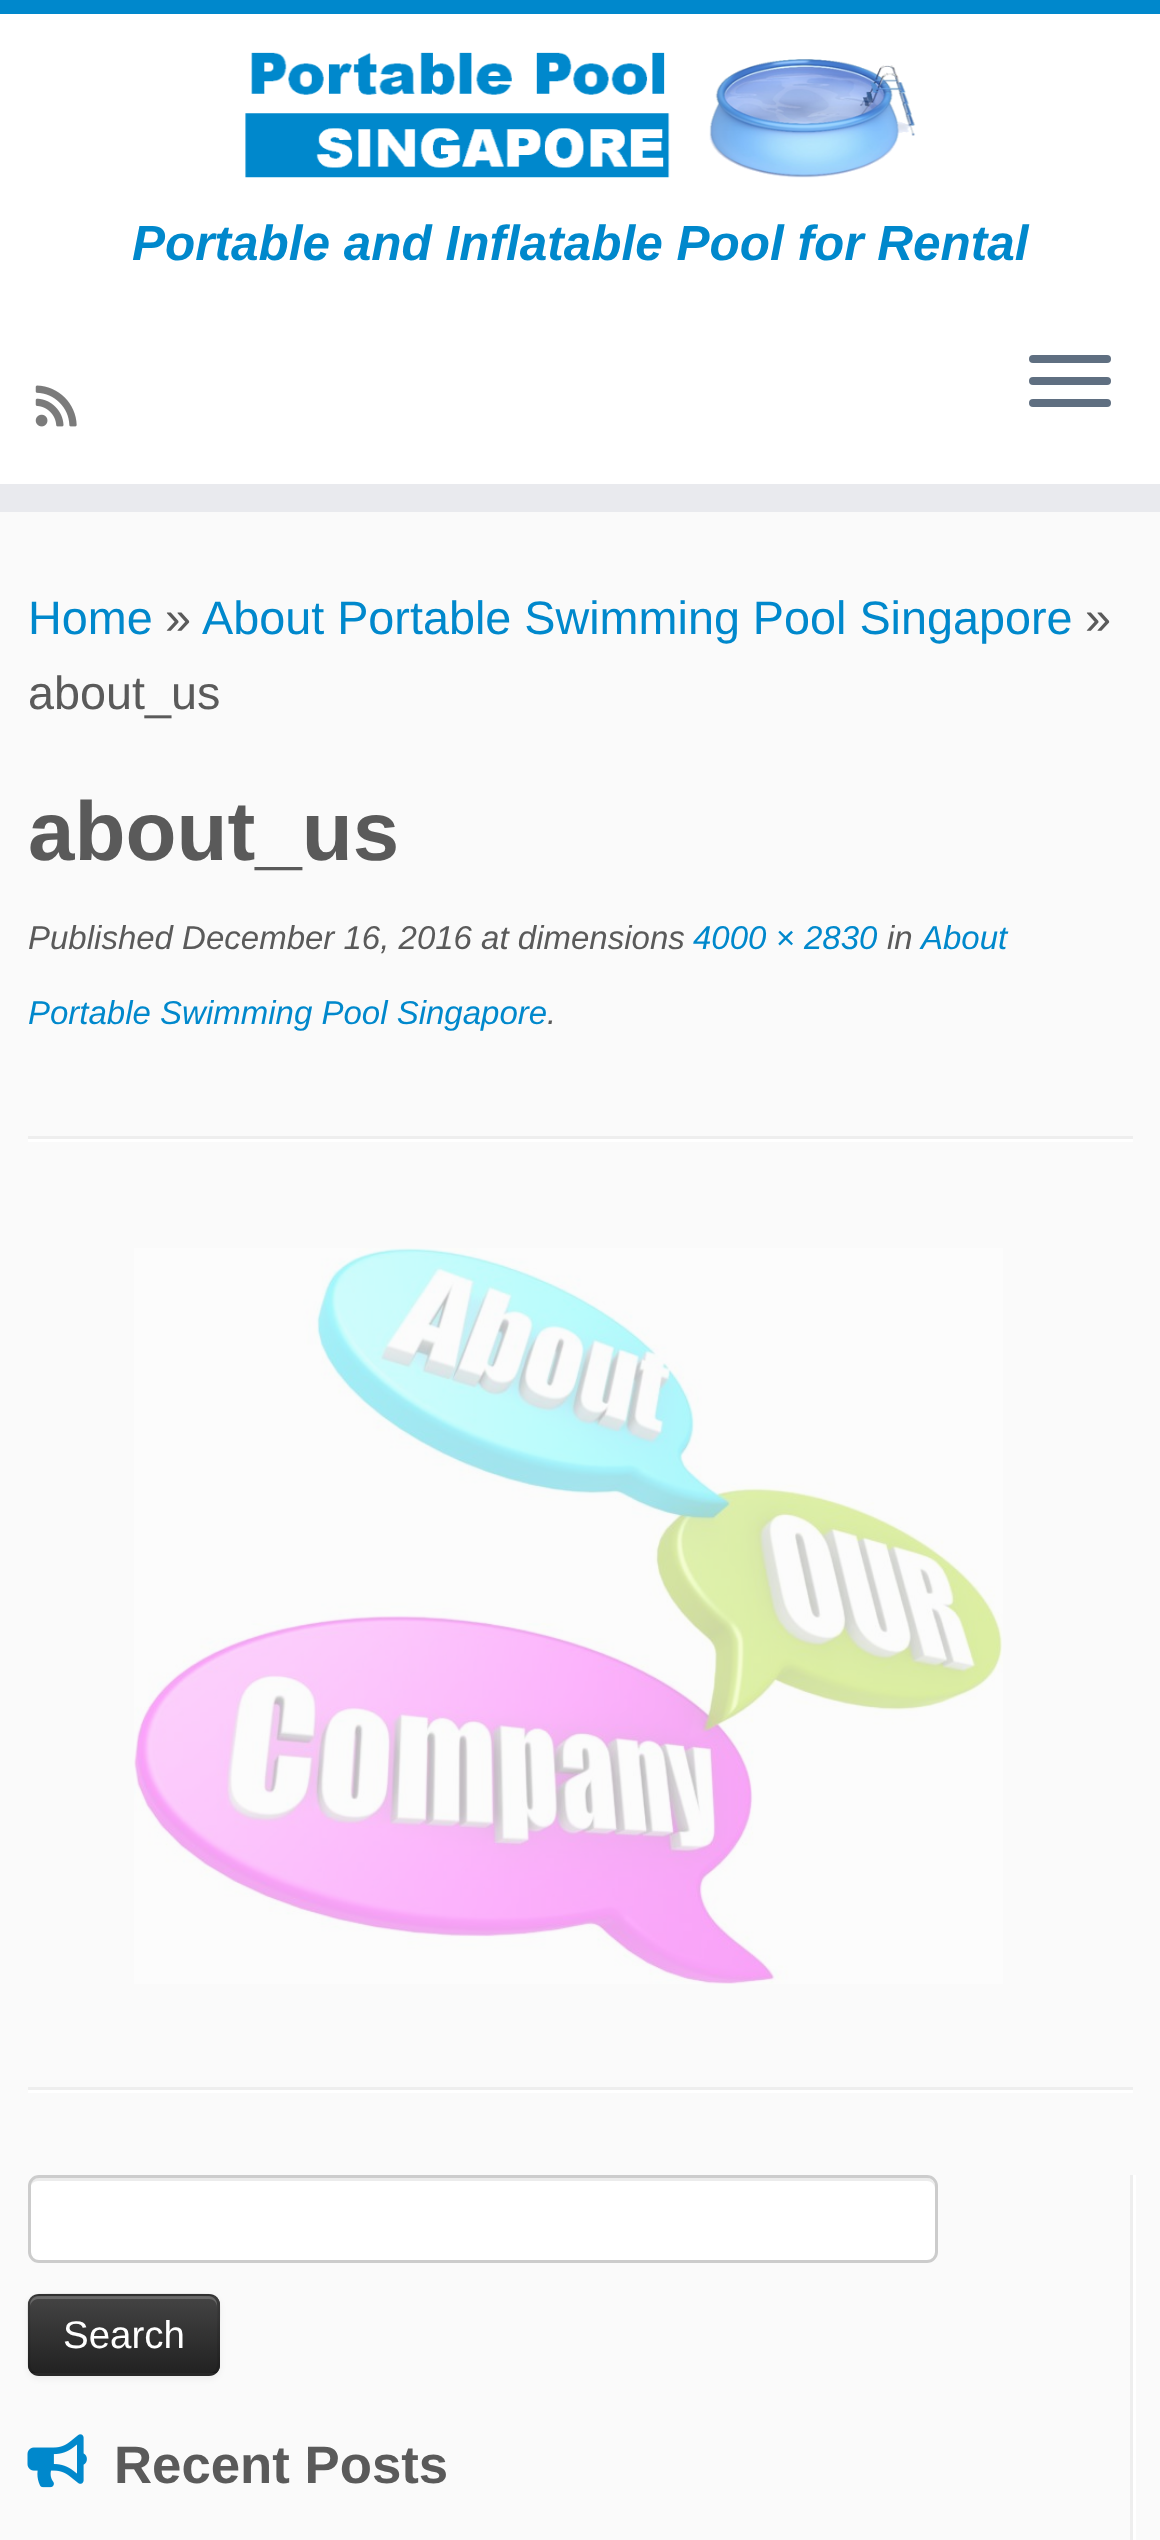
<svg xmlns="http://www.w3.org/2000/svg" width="1160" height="2540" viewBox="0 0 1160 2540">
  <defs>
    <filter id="blur1" x="-50%" y="-200%" width="200%" height="500%"><feGaussianBlur stdDeviation="3"/></filter>
    <clipPath id="clip1"><rect x="28" y="2294" width="192" height="82" rx="11"/></clipPath>
    <linearGradient id="g1" gradientUnits="userSpaceOnUse" x1="124" y1="2296" x2="124" y2="2373"><stop offset="0" stop-color="#444444"/><stop offset="1" stop-color="#222222"/></linearGradient>
  </defs>
  <rect width="100%" height="100%" fill="#fafafa"/>
  <rect x="0" y="14" width="1160" height="470" fill="#ffffff"/>
  <rect x="0" y="0" width="1160" height="14" fill="#0088cc"/>
  <rect x="0" y="484" width="1160" height="28" fill="#e9eaee"/>
  <image x="245" y="52" width="671" height="126" href="img1.png"/>
  <text x="132" y="260" font-family="Liberation Sans" font-size="49.5" font-weight="bold" font-style="italic" fill="#0088cc">Portable and Inflatable Pool for Rental</text>
  <image x="35" y="385" width="42" height="42" href="img2.png"/>
  <rect x="1029" y="355" width="82" height="8" rx="4" fill="#5f6f81"/>
  <rect x="1029" y="377" width="82" height="8" rx="4" fill="#5f6f81"/>
  <rect x="1029" y="399" width="82" height="8" rx="4" fill="#5f6f81"/>
  <text x="28" y="634" font-family="Liberation Sans" font-size="46.75" fill="#0088cc">Home</text>
  <text x="165" y="634" font-family="Liberation Sans" font-size="46.75" fill="#5a5a5a">»</text>
  <text x="202" y="634" font-family="Liberation Sans" font-size="46.75" fill="#0088cc">About Portable Swimming Pool Singapore</text>
  <text x="1085" y="634" font-family="Liberation Sans" font-size="46.75" fill="#5a5a5a">»</text>
  <text x="28" y="709" font-family="Liberation Sans" font-size="46.75" fill="#5a5a5a">about_us</text>
  <text x="28" y="860" font-family="Liberation Sans" font-size="83.5" font-weight="bold" fill="#5a5a5a">about_us</text>
  <text x="28" y="949" font-family="Liberation Sans" font-size="33" font-style="italic" fill="#5a5a5a">Published December 16, 2016 at dimensions</text>
  <text x="693" y="949" font-family="Liberation Sans" font-size="33" font-style="italic" fill="#0088cc">4000 × 2830</text>
  <text x="887" y="949" font-family="Liberation Sans" font-size="33" font-style="italic" fill="#5a5a5a">in</text>
  <text x="921" y="949" font-family="Liberation Sans" font-size="33" font-style="italic" fill="#0088cc">About</text>
  <text x="28" y="1024" font-family="Liberation Sans" font-size="33" font-style="italic" fill="#0088cc">Portable Swimming Pool Singapore</text>
  <text x="547" y="1024" font-family="Liberation Sans" font-size="33" font-style="italic" fill="#5a5a5a">.</text>
  <rect x="28" y="1136" width="1105" height="3" fill="#eeeeee"/>
  <rect x="28" y="1139" width="1105" height="3" fill="#ffffff"/>
  <image x="134" y="1248" width="869" height="736" href="img3.png"/>
  <rect x="28" y="2087" width="1105" height="3" fill="#eeeeee"/>
  <rect x="28" y="2090" width="1105" height="3" fill="#ffffff"/>
  <rect x="1130" y="2175" width="3" height="365" fill="#eeeeee"/>
  <rect x="28" y="2175" width="910" height="88" rx="11" fill="#ffffff"/>
  <path d="M38 2181H927C931 2181 935 2184 935 2189V2186C935 2182 931 2178 927 2178H38C34 2178 30 2182 30 2186V2189C30 2184 34 2181 38 2181Z" fill="#ececec"/>
  <rect x="29.5" y="2176.5" width="907" height="85" rx="9.5" fill="none" stroke="#cccccc" stroke-width="3"/>
  <rect x="28" y="2296" width="192" height="83" rx="11" fill="#000000" fill-opacity="0.05" filter="url(#blur1)"/>
  <rect x="28" y="2294" width="192" height="82" rx="11" fill="#363636"/>
  <g clip-path="url(#clip1)">
    <rect x="28" y="2296" width="192" height="77" fill="url(#g1)"/>
  </g>
  <path d="M38 2299H209C214 2299 217 2303 217 2307V2304C217 2300 213 2296 209 2296H38C34 2296 30 2300 30 2304V2307C30 2303 34 2299 38 2299Z" fill="#ffffff" fill-opacity="0.2"/>
  <path d="M216 2372C214 2373.5 211.5 2374.5 209 2374.5H38.5C36 2374.5 33.5 2373.5 31.5 2372" fill="none" stroke="#000000" stroke-opacity="0.25" stroke-width="2.8"/>
  <path d="M31.5 2372C27.5 2367.5 29 2360 29 2355V2335C29 2290 22 2295 67 2295H180.5C225.5 2295 218.5 2290 218.5 2335V2355C218.5 2360 220 2367.5 216 2372" fill="none" stroke="#000000" stroke-opacity="0.1" stroke-width="2.8"/>
  <text x="63" y="2348" font-family="Liberation Sans" font-size="38.5" fill="#ffffff">Search</text>
  <rect x="1133" y="2175" width="3" height="365" fill="#ffffff"/>
  <image x="27" y="2434" width="60" height="54" href="img4.png"/>
  <text x="114" y="2483" font-family="Liberation Sans" font-size="52.75" font-weight="bold" fill="#5a5a5a">Recent Posts</text>
</svg>
